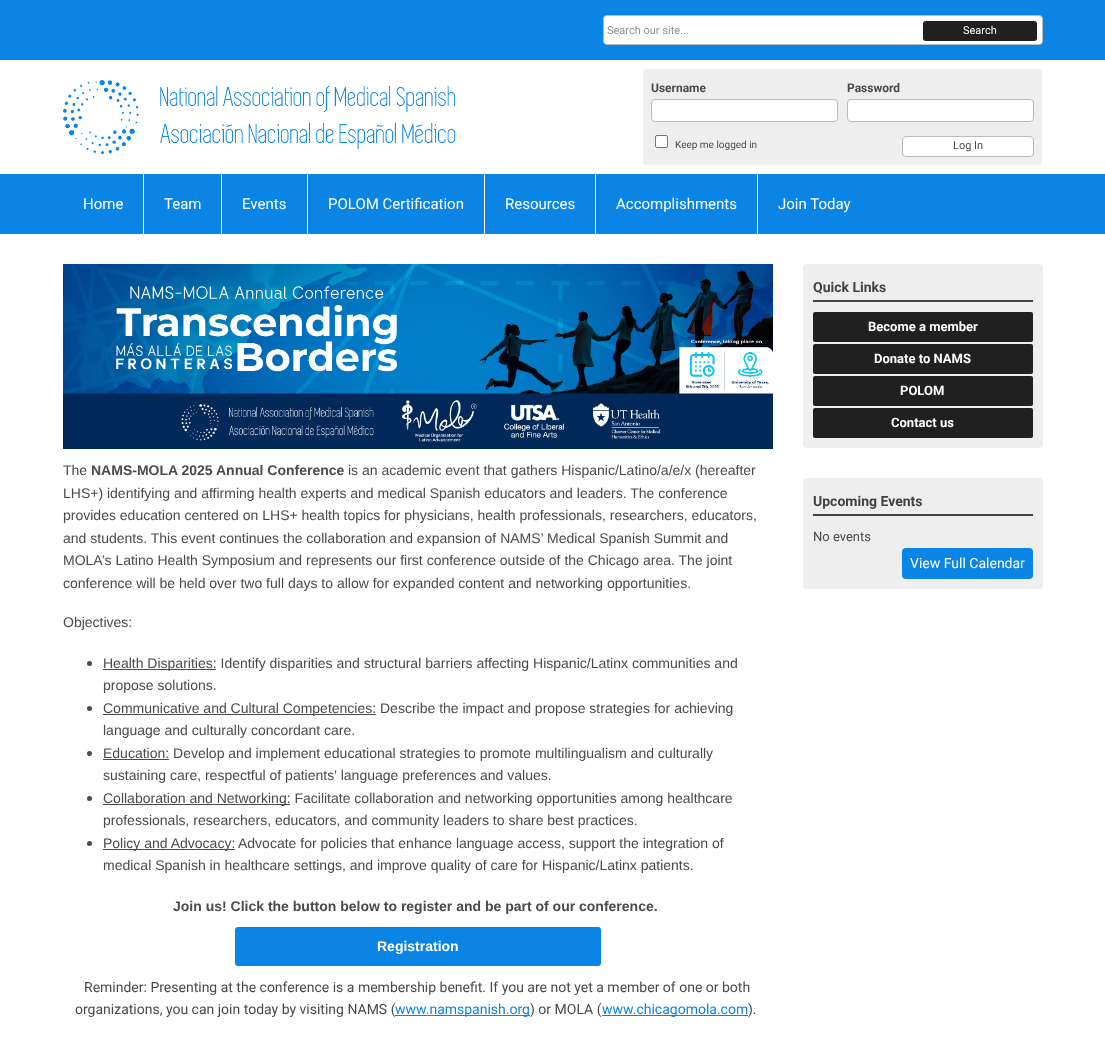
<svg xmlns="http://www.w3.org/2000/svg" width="1105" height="1037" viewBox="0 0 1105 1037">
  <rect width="100%" height="100%" fill="#ffffff"/>
  <rect x="0" y="0" width="1105" height="60" fill="#0a85e6"/>
  <rect x="603.5" y="15.5" width="439" height="29" rx="3.5" fill="#ffffff" stroke="#bbbbbb"/>
  <text x="607" y="34" font-family="Roboto" font-size="11" fill="#929292">Search our site...</text>
  <rect x="923" y="21" width="114" height="20" rx="3" fill="#202020"/>
  <text x="963" y="34" font-family="Roboto" font-size="11" fill="#ffffff">Search</text>
  <image x="63" y="80" width="392" height="74" href="img1.png"/>
  <rect x="643" y="69" width="399" height="96" rx="4" fill="#eeeeee"/>
  <text x="651" y="92" font-family="Roboto" font-size="12" font-weight="bold" fill="#4a4a4a">Username</text>
  <rect x="651.5" y="99.5" width="186" height="22" rx="3.5" fill="#ffffff" stroke="#bbbbbb"/>
  <text x="847" y="92" font-family="Roboto" font-size="12" font-weight="bold" fill="#4a4a4a">Password</text>
  <rect x="847.5" y="99.5" width="186" height="22" rx="3.5" fill="#ffffff" stroke="#bbbbbb"/>
  <rect x="655.5" y="135.5" width="12" height="12" rx="1.5" fill="#ffffff" stroke="#767676"/>
  <text x="675" y="148" font-family="Roboto" font-size="10" fill="#4a4a4a">Keep me logged in</text>
  <rect x="902.5" y="136.5" width="131" height="20" rx="3.5" fill="#ffffff" stroke="#bbbbbb"/>
  <text x="953" y="149" font-family="Roboto" font-size="11" fill="#4a4a4a">Log In</text>
  <rect x="0" y="174" width="1105" height="60" fill="#0a85e6"/>
  <text x="83" y="209" font-family="Roboto" font-size="15" fill="#ffffff">Home</text>
  <rect x="143" y="174" width="1" height="60" fill="#ffffff"/>
  <text x="164" y="209" font-family="Roboto" font-size="15" fill="#ffffff">Team</text>
  <rect x="221" y="174" width="1" height="60" fill="#ffffff"/>
  <text x="242" y="209" font-family="Roboto" font-size="15" fill="#ffffff">Events</text>
  <rect x="307" y="174" width="1" height="60" fill="#ffffff"/>
  <text x="328" y="209" font-family="Roboto" font-size="15" fill="#ffffff">POLOM Certification</text>
  <rect x="484" y="174" width="1" height="60" fill="#ffffff"/>
  <text x="505" y="209" font-family="Roboto" font-size="15" fill="#ffffff">Resources</text>
  <rect x="595" y="174" width="1" height="60" fill="#ffffff"/>
  <text x="616" y="209" font-family="Roboto" font-size="15" fill="#ffffff">Accomplishments</text>
  <rect x="757" y="174" width="1" height="60" fill="#ffffff"/>
  <text x="778" y="209" font-family="Roboto" font-size="15" fill="#ffffff">Join Today</text>
  <rect x="803" y="264" width="240" height="184" rx="4" fill="#eeeeee"/>
  <rect x="813" y="300" width="220" height="2" fill="#424242"/>
  <text x="813" y="292" font-family="Roboto" font-size="14" font-weight="bold" fill="#424242">Quick Links</text>
  <rect x="813" y="312" width="220" height="30" rx="2" fill="#202020"/>
  <text x="868" y="331" font-family="Roboto" font-size="13" font-weight="bold" fill="#ffffff">Become a member</text>
  <rect x="813" y="344" width="220" height="30" rx="2" fill="#202020"/>
  <text x="874" y="363" font-family="Roboto" font-size="13" font-weight="bold" fill="#ffffff">Donate to NAMS</text>
  <rect x="813" y="376" width="220" height="30" rx="2" fill="#202020"/>
  <text x="900" y="395" font-family="Roboto" font-size="13" font-weight="bold" fill="#ffffff">POLOM</text>
  <rect x="813" y="408" width="220" height="30" rx="2" fill="#202020"/>
  <text x="891" y="427" font-family="Roboto" font-size="13" font-weight="bold" fill="#ffffff">Contact us</text>
  <rect x="803" y="478" width="240" height="111" rx="4" fill="#eeeeee"/>
  <rect x="813" y="514" width="220" height="2" fill="#424242"/>
  <text x="813" y="506" font-family="Roboto" font-size="14" font-weight="bold" fill="#424242">Upcoming Events</text>
  <text x="813" y="541" font-family="Roboto" font-size="13" fill="#4a4a4a">No events</text>
  <rect x="902" y="548" width="131" height="31" rx="4" fill="#0a85e6"/>
  <text x="910" y="568" font-family="Roboto" font-size="14" fill="#ffffff">View Full Calendar</text>
  <image x="63" y="264" width="710" height="185" href="img2.png"/>
  <text x="63" y="475" font-family="Liberation Sans" font-size="14" fill="#4a4a4a">The</text>
  <text x="91" y="475" font-family="Liberation Sans" font-size="14" font-weight="bold" fill="#4a4a4a">NAMS-MOLA 2025 Annual Conference</text>
  <text x="348" y="475" font-family="Liberation Sans" font-size="14" fill="#4a4a4a">is an academic event that gathers Hispanic/Latino/a/e/x (hereafter</text>
  <text x="63" y="498" font-family="Liberation Sans" font-size="14" fill="#4a4a4a">LHS+) identifying and affirming health experts and medical Spanish educators and leaders. The conference</text>
  <text x="63" y="520" font-family="Liberation Sans" font-size="14" fill="#4a4a4a">provides education centered on LHS+ health topics for physicians, health professionals, researchers, educators,</text>
  <text x="63" y="543" font-family="Liberation Sans" font-size="14" fill="#4a4a4a">and students. This event continues the collaboration and expansion of NAMS’ Medical Spanish Summit and</text>
  <text x="63" y="565" font-family="Liberation Sans" font-size="14" fill="#4a4a4a">MOLA’s Latino Health Symposium and represents our first conference outside of the Chicago area. The joint</text>
  <text x="63" y="588" font-family="Liberation Sans" font-size="14" fill="#4a4a4a">conference will be held over two full days to allow for expanded content and networking opportunities.</text>
  <text x="63" y="627" font-family="Liberation Sans" font-size="14" fill="#4a4a4a">Objectives:</text>
  <circle cx="89.5" cy="663.5" r="2.5" fill="#4a4a4a"/>
  <rect x="103" y="669" width="113" height="1" fill="#4a4a4a"/>
  <text x="103" y="668" font-family="Liberation Sans" font-size="14" fill="#4a4a4a">Health Disparities: Identify disparities and structural barriers affecting Hispanic/Latinx communities and</text>
  <text x="103" y="690" font-family="Liberation Sans" font-size="14" fill="#4a4a4a">propose solutions.</text>
  <circle cx="89.5" cy="708.5" r="2.5" fill="#4a4a4a"/>
  <rect x="103" y="714" width="273" height="1" fill="#4a4a4a"/>
  <text x="103" y="713" font-family="Liberation Sans" font-size="14" fill="#4a4a4a">Communicative and Cultural Competencies: Describe the impact and propose strategies for achieving</text>
  <text x="103" y="735" font-family="Liberation Sans" font-size="14" fill="#4a4a4a">language and culturally concordant care.</text>
  <circle cx="89.5" cy="753.5" r="2.5" fill="#4a4a4a"/>
  <rect x="103" y="759" width="66" height="1" fill="#4a4a4a"/>
  <text x="103" y="758" font-family="Liberation Sans" font-size="14" fill="#4a4a4a">Education: Develop and implement educational strategies to promote multilingualism and culturally</text>
  <text x="103" y="780" font-family="Liberation Sans" font-size="14" fill="#4a4a4a">sustaining care, respectful of patients' language preferences and values.</text>
  <circle cx="89.5" cy="798.5" r="2.5" fill="#4a4a4a"/>
  <rect x="103" y="804" width="187" height="1" fill="#4a4a4a"/>
  <text x="103" y="803" font-family="Liberation Sans" font-size="14" fill="#4a4a4a">Collaboration and Networking: Facilitate collaboration and networking opportunities among healthcare</text>
  <text x="103" y="825" font-family="Liberation Sans" font-size="14" fill="#4a4a4a">professionals, researchers, educators, and community leaders to share best practices.</text>
  <circle cx="89.5" cy="843.5" r="2.5" fill="#4a4a4a"/>
  <rect x="103" y="849" width="132" height="1" fill="#4a4a4a"/>
  <text x="103" y="848" font-family="Liberation Sans" font-size="14" fill="#4a4a4a">Policy and Advocacy:</text>
  <text x="238" y="848" font-family="Liberation Sans" font-size="14" fill="#4a4a4a">Advocate for policies that enhance language access, support the integration of</text>
  <text x="103" y="870" font-family="Liberation Sans" font-size="14" fill="#4a4a4a">medical Spanish in healthcare settings, and improve quality of care for Hispanic/Latinx patients.</text>
  <text x="173" y="911" font-family="Liberation Sans" font-size="14" font-weight="bold" fill="#4a4a4a">Join us! Click the button below to register and be part of our conference.</text>
  <rect x="235" y="927" width="366" height="39" rx="3" fill="#0a85e6"/>
  <text x="377" y="951" font-family="Liberation Sans" font-size="14" font-weight="bold" fill="#ffffff">Registration</text>
  <text x="84" y="992" font-family="Roboto" font-size="14" fill="#4a4a4a">Reminder: Presenting at the conference is a membership benefit. If you are not yet a member of one or both</text>
  <text x="75" y="1014" font-family="Roboto" font-size="14" fill="#4a4a4a">organizations, you can join today by visiting NAMS (</text>
  <rect x="395" y="1015" width="135" height="1" fill="#0a85e6"/>
  <text x="395" y="1014" font-family="Roboto" font-size="14" fill="#0a85e6">www.namspanish.org</text>
  <text x="530" y="1014" font-family="Roboto" font-size="14" fill="#4a4a4a">) or MOLA (</text>
  <rect x="602" y="1015" width="146" height="1" fill="#0a85e6"/>
  <text x="602" y="1014" font-family="Roboto" font-size="14" fill="#0a85e6">www.chicagomola.com</text>
  <text x="748" y="1014" font-family="Roboto" font-size="14" fill="#4a4a4a">).</text>
</svg>
